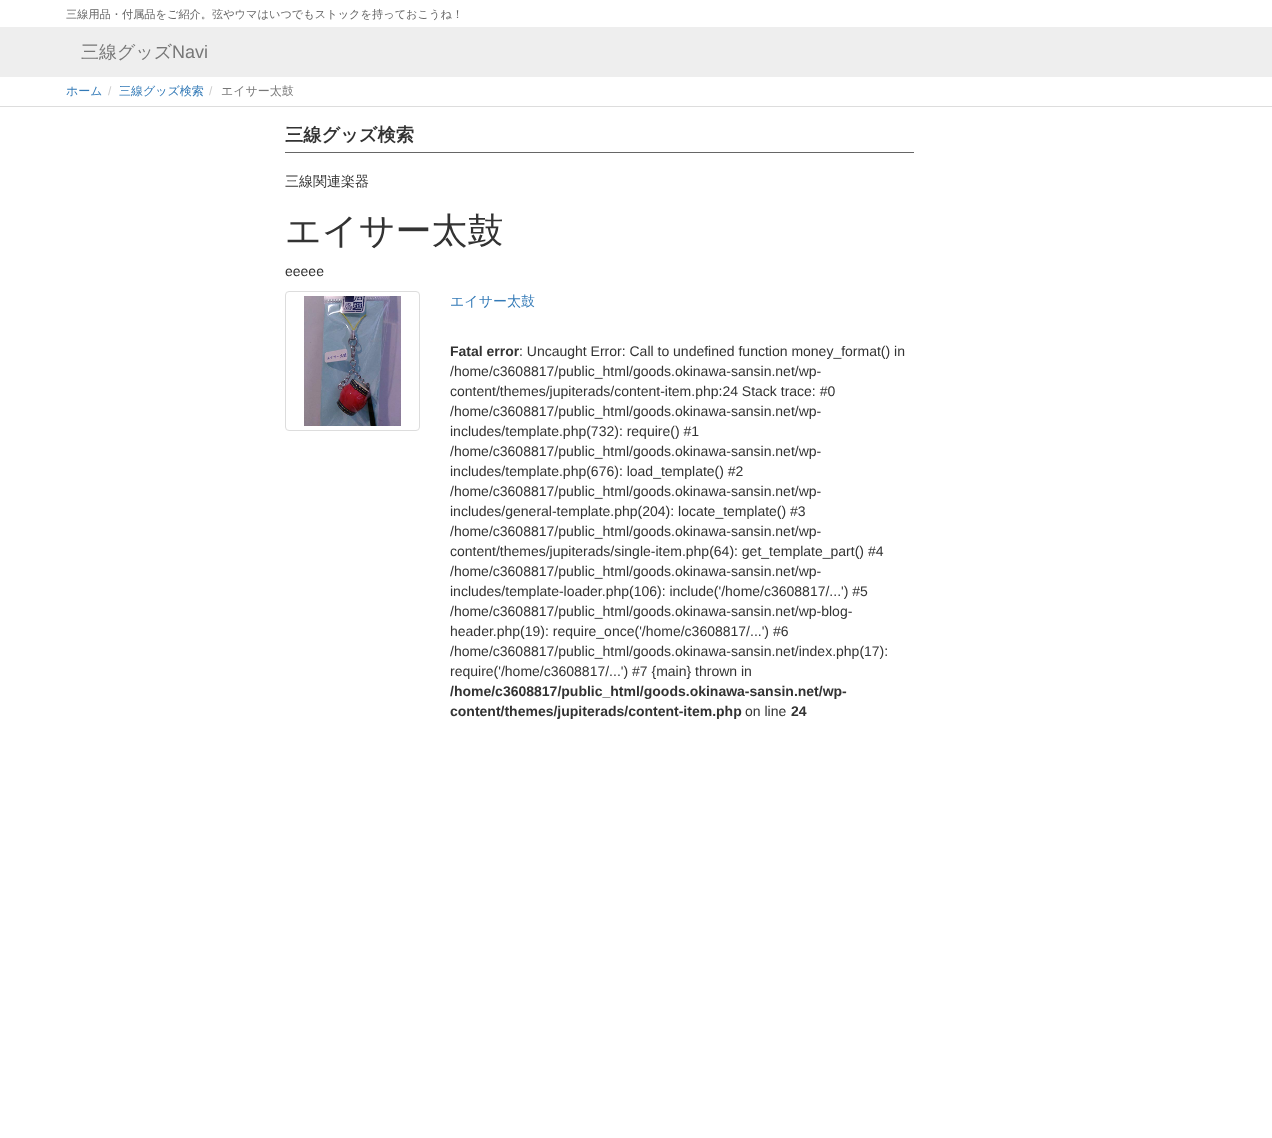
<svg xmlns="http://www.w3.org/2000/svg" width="1272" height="1138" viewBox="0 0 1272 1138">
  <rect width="100%" height="100%" fill="#ffffff"/>
  <text x="66" y="18" font-family="WenQuanYi Zen Hei" font-size="11.2" font-weight="500" fill="#666666">三線用品・付属品をご紹介。弦やウマはいつでもストックを持っておこうね！</text>
  <rect x="0" y="27" width="1272" height="50" fill="#eeeeee"/>
  <text x="81" y="58" font-family="WenQuanYi Zen Hei" font-size="18" font-weight="500" fill="#777777">三線グッズ</text>
  <text x="172" y="58" font-family="Liberation Sans" font-size="18" fill="#777777">Navi</text>
  <rect x="0" y="106" width="1272" height="1" fill="#dddddd"/>
  <text x="66" y="95" font-family="WenQuanYi Zen Hei" font-size="12" font-weight="500" fill="#337ab7">ホーム</text>
  <text x="108" y="95" font-family="Liberation Sans" font-size="12" fill="#cccccc">/</text>
  <text x="119" y="95" font-family="WenQuanYi Zen Hei" font-size="12" font-weight="500" fill="#337ab7">三線グッズ検索</text>
  <text x="209" y="95" font-family="Liberation Sans" font-size="12" fill="#cccccc">/</text>
  <text x="221" y="95" font-family="WenQuanYi Zen Hei" font-size="12" font-weight="500" fill="#777777">エイサー太鼓</text>
  <rect x="285" y="152" width="629" height="1" fill="#666666"/>
  <text x="285" y="141" font-family="WenQuanYi Zen Hei" font-size="18.25" font-weight="bold" fill="#333333">三線グッズ検索</text>
  <text x="285" y="186" font-family="WenQuanYi Zen Hei" font-size="14" font-weight="500" fill="#333333">三線関連楽器</text>
  <text x="285" y="243" font-family="WenQuanYi Zen Hei" font-size="36" font-weight="500" fill="#333333">エイサー太鼓</text>
  <text x="285" y="276" font-family="Liberation Sans" font-size="14" fill="#333333">eeeee</text>
  <rect x="285.5" y="291.5" width="134" height="139" rx="3.5" fill="none" stroke="#dddddd"/>
  <image x="304" y="296" width="97" height="130" href="img1.png"/>
  <text x="450" y="306" font-family="WenQuanYi Zen Hei" font-size="14" font-weight="500" fill="#337ab7">エイサー太鼓</text>
  <text x="450" y="356" font-family="Liberation Sans" font-size="14" font-weight="bold" fill="#333333">Fatal error</text>
  <text x="519" y="356" font-family="Liberation Sans" font-size="14" fill="#333333">: Uncaught Error: Call to undefined function money_format() in</text>
  <text x="450" y="376" font-family="Liberation Sans" font-size="14" fill="#333333">/home/c3608817/public_html/goods.okinawa-sansin.net/wp-</text>
  <text x="450" y="396" font-family="Liberation Sans" font-size="14" fill="#333333">content/themes/jupiterads/content-item.php:24 Stack trace: #0</text>
  <text x="450" y="416" font-family="Liberation Sans" font-size="14" fill="#333333">/home/c3608817/public_html/goods.okinawa-sansin.net/wp-</text>
  <text x="450" y="436" font-family="Liberation Sans" font-size="14" fill="#333333">includes/template.php(732): require() #1</text>
  <text x="450" y="456" font-family="Liberation Sans" font-size="14" fill="#333333">/home/c3608817/public_html/goods.okinawa-sansin.net/wp-</text>
  <text x="450" y="476" font-family="Liberation Sans" font-size="14" fill="#333333">includes/template.php(676): load_template() #2</text>
  <text x="450" y="496" font-family="Liberation Sans" font-size="14" fill="#333333">/home/c3608817/public_html/goods.okinawa-sansin.net/wp-</text>
  <text x="450" y="516" font-family="Liberation Sans" font-size="14" fill="#333333">includes/general-template.php(204): locate_template() #3</text>
  <text x="450" y="536" font-family="Liberation Sans" font-size="14" fill="#333333">/home/c3608817/public_html/goods.okinawa-sansin.net/wp-</text>
  <text x="450" y="556" font-family="Liberation Sans" font-size="14" fill="#333333">content/themes/jupiterads/single-item.php(64): get_template_part() #4</text>
  <text x="450" y="576" font-family="Liberation Sans" font-size="14" fill="#333333">/home/c3608817/public_html/goods.okinawa-sansin.net/wp-</text>
  <text x="450" y="596" font-family="Liberation Sans" font-size="14" fill="#333333">includes/template-loader.php(106): include('/home/c3608817/...') #5</text>
  <text x="450" y="616" font-family="Liberation Sans" font-size="14" fill="#333333">/home/c3608817/public_html/goods.okinawa-sansin.net/wp-blog-</text>
  <text x="450" y="636" font-family="Liberation Sans" font-size="14" fill="#333333">header.php(19): require_once('/home/c3608817/...') #6</text>
  <text x="450" y="656" font-family="Liberation Sans" font-size="14" fill="#333333">/home/c3608817/public_html/goods.okinawa-sansin.net/index.php(17):</text>
  <text x="450" y="676" font-family="Liberation Sans" font-size="14" fill="#333333">require('/home/c3608817/...') #7 {main} thrown in</text>
  <text x="450" y="696" font-family="Liberation Sans" font-size="14" font-weight="bold" fill="#333333">/home/c3608817/public_html/goods.okinawa-sansin.net/wp-</text>
  <text x="450" y="716" font-family="Liberation Sans" font-size="14" font-weight="bold" fill="#333333">content/themes/jupiterads/content-item.php</text>
  <text x="745" y="716" font-family="Liberation Sans" font-size="14" fill="#333333">on line</text>
  <text x="791" y="716" font-family="Liberation Sans" font-size="14" font-weight="bold" fill="#333333">24</text>
</svg>
